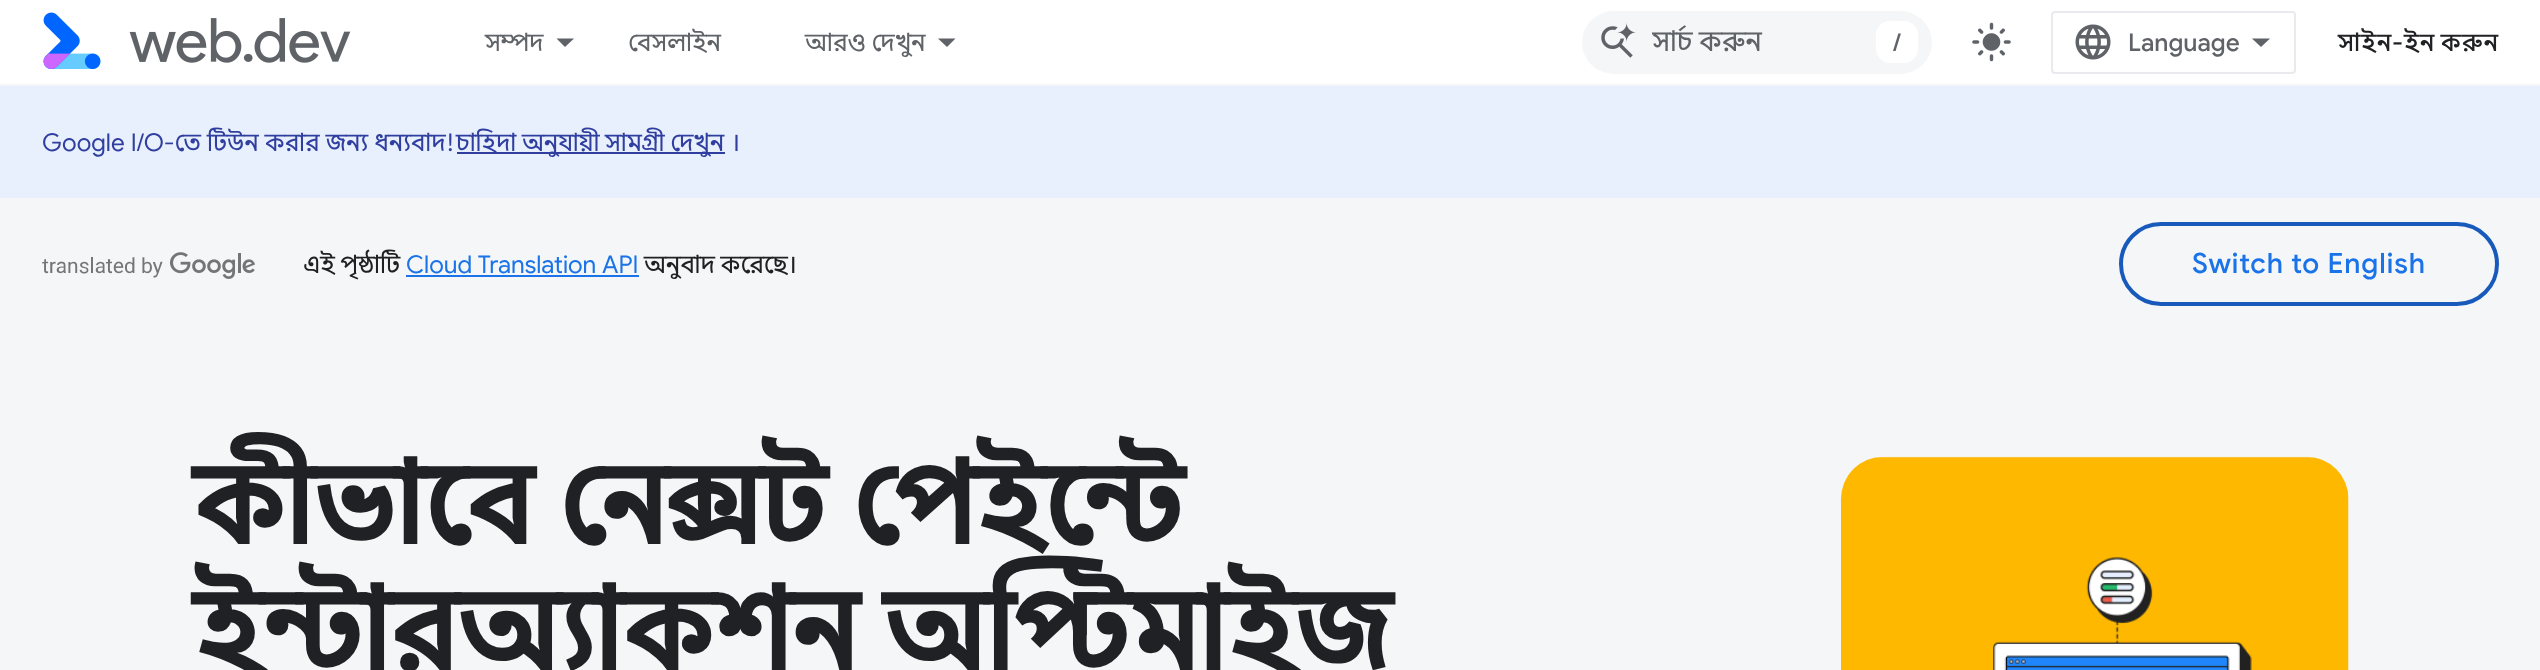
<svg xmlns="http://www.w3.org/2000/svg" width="2540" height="670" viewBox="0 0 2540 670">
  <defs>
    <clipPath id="clip1"><rect x="1652" y="25" width="266" height="35"/></clipPath>
  </defs>
  <rect width="100%" height="100%" fill="#ffffff"/>
  <rect x="0" y="84" width="2540" height="2" fill="#f5f6f7"/>
  <image x="43" y="12" width="308" height="57" href="img1.png"/>
  <text x="485" y="51" font-family="Google Sans" font-size="24.5" fill="#5f6368">সম্পদ</text>
  <path d="M556.5 38.5H574L565 47Z" fill="#5f6368"/>
  <text x="628" y="51" font-family="Google Sans" font-size="24.5" fill="#5f6368">বেসলাইন</text>
  <text x="805" y="51" font-family="Google Sans" font-size="24.5" fill="#5f6368">আরও দেখুন</text>
  <path d="M938 38.5H955.5L947 47Z" fill="#5f6368"/>
  <rect x="1582" y="11" width="350" height="63" rx="31.5" fill="#f5f6f7"/>
  <image x="1601" y="23" width="35" height="35" href="img2.png"/>
  <g clip-path="url(#clip1)">
    <text x="1652" y="51" font-family="Google Sans" font-size="28" fill="#5f6368">সার্চ করুন</text>
  </g>
  <rect x="1876" y="21" width="42" height="42" rx="14" fill="#ffffff"/>
  <text x="1893" y="51" font-family="Google Sans" font-size="24.5" font-weight="500" fill="#5f6368">/</text>
  <image x="1972" y="22" width="39" height="40" href="img3.png"/>
  <rect x="2052" y="12" width="243" height="61" rx="3" fill="none" stroke="#e8eaed" stroke-width="2"/>
  <image x="2075" y="24" width="36" height="36" href="img4.png"/>
  <text x="2128" y="51" font-family="Google Sans" font-size="24.5" font-weight="500" fill="#5f6368">Language</text>
  <path d="M2261 47L2252 38.5H2270Z" fill="#5f6368"/>
  <text x="2338" y="51" word-spacing="-1" font-family="Google Sans" font-size="24.5" font-weight="500" letter-spacing="0.9" fill="#202124">সাইন-ইন করুন</text>
  <rect x="0" y="86" width="2540" height="112" fill="#e8f0fe"/>
  <text x="42" y="151" word-spacing="0.5" font-family="Google Sans" font-size="24.5" fill="#303f9f">Google I/O-তে টিউন করার জন্য ধন্যবাদ!</text>
  <rect x="457" y="152" width="268" height="2" fill="#303f9f"/>
  <text x="456" y="151" font-family="Google Sans" font-size="24.5" fill="#303f9f">চাহিদা অনুযায়ী সামগ্রী দেখুন</text>
  <text x="731" y="151" font-family="Google Sans" font-size="24.5" fill="#303f9f">।</text>
  <rect x="0" y="198" width="2540" height="472" fill="#f5f6f7"/>
  <image x="42" y="252" width="213" height="27" href="img5.png"/>
  <text x="303" y="273" font-family="Google Sans" font-size="24.5" fill="#202124">এই পৃষ্ঠাটি</text>
  <text x="406" y="273" font-family="Google Sans" font-size="24.5" fill="#1a73e8">Cloud Translation API</text>
  <text x="644" y="273" font-family="Google Sans" font-size="24.5" fill="#202124">অনুবাদ করেছে।</text>
  <rect x="406" y="275" width="233" height="2" fill="#1a73e8"/>
  <rect x="2121" y="224" width="376" height="80" rx="40" fill="none" stroke="#185abc" stroke-width="4"/>
  <text x="2192" y="273" font-family="Google Sans" font-size="28" font-weight="500" letter-spacing="0.9" fill="#1a73e8">Switch to English</text>
  <text x="193" y="544" font-family="Google Sans" font-size="112" font-weight="bold" fill="#202124">কীভাবে নেক্সট পেইন্টে</text>
  <text x="193" y="670" font-family="Google Sans" font-size="112" font-weight="bold" fill="#202124">ইন্টারঅ্যাকশন অপ্টিমাইজ</text>
  <image x="1841" y="456" width="508" height="214" href="img6.png"/>
</svg>
